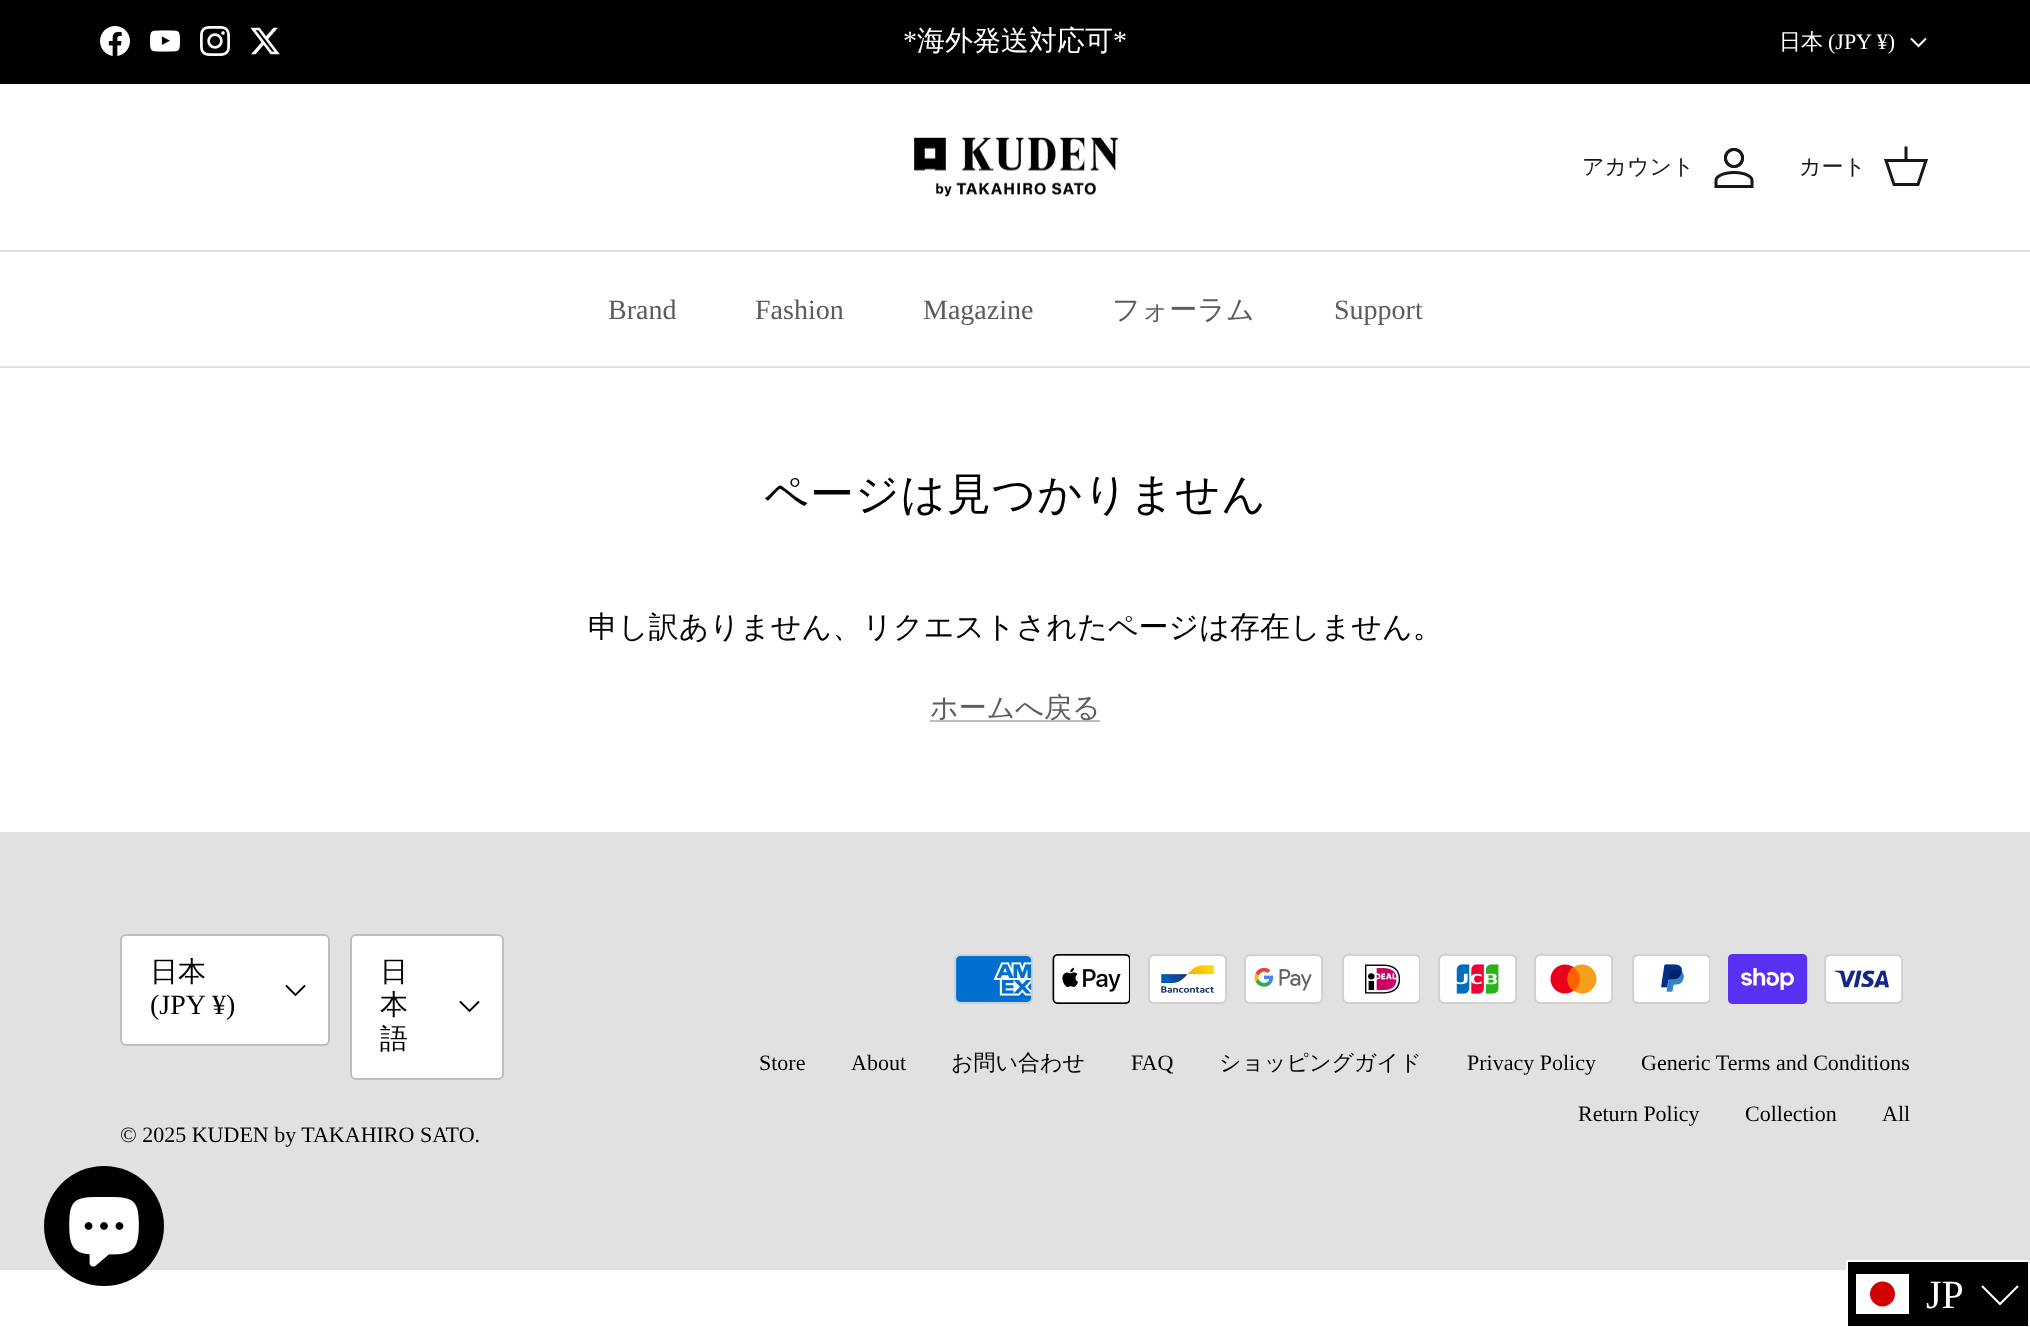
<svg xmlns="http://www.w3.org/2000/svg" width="2030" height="1327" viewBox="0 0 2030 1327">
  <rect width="100%" height="100%" fill="#ffffff"/>
  <rect x="0" y="0" width="2030" height="84" fill="#000000"/>
  <image x="100" y="26" width="30" height="30" href="img1.png"/>
  <image x="150" y="30" width="30" height="22" href="img2.png"/>
  <image x="200" y="26" width="30" height="30" href="img3.png"/>
  <image x="250" y="27" width="30" height="28" href="img4.png"/>
  <text x="903" y="50" font-family="Liberation Serif" font-size="28" fill="#ffffff">*</text>
  <text x="917" y="50" font-family="WenQuanYi Zen Hei" font-size="28" font-weight="500" fill="#ffffff">海外発送対応可</text>
  <text x="1113" y="50" font-family="Liberation Serif" font-size="28" fill="#ffffff">*</text>
  <text x="1779" y="49" font-family="WenQuanYi Zen Hei" font-size="22" font-weight="500" fill="#ffffff">日本</text>
  <text x="1828" y="49" font-family="Liberation Serif" font-size="22" fill="#ffffff">(JPY ¥)</text>
  <path d="M1926 38.5L1918.5 46L1911 38.5" fill="none" stroke="#ffffff" stroke-width="2"/>
  <rect x="0" y="250" width="2030" height="2" fill="#dfe3e8"/>
  <image x="914" y="137" width="204" height="60" href="img5.png"/>
  <text x="1582" y="174" font-family="WenQuanYi Zen Hei" font-size="22" font-weight="500" fill="#171717">アカウント</text>
  <image x="1714" y="148" width="40" height="40" href="img6.png"/>
  <text x="1799" y="174" font-family="WenQuanYi Zen Hei" font-size="22" font-weight="500" fill="#171717">カート</text>
  <path d="M1886 160.5H1926L1918 184.5H1894Z" fill="none" stroke="#171717" stroke-width="3"/>
  <path d="M1906 160V148" fill="none" stroke="#171717" stroke-width="3" stroke-linecap="square"/>
  <rect x="0" y="366" width="2030" height="2" fill="#dfe3e8"/>
  <text x="608" y="319" font-family="Liberation Serif" font-size="28" fill="#5c5c5c">Brand</text>
  <text x="755" y="319" font-family="Liberation Serif" font-size="28" fill="#5c5c5c">Fashion</text>
  <text x="923" y="319" font-family="Liberation Serif" font-size="28" fill="#5c5c5c">Magazine</text>
  <text x="1112" y="319" font-family="WenQuanYi Zen Hei" font-size="28" font-weight="500" fill="#5c5c5c">フォーラム</text>
  <text x="1334" y="319" font-family="Liberation Serif" font-size="28" fill="#5c5c5c">Support</text>
  <text x="764" y="509" font-family="WenQuanYi Zen Hei" font-size="44" font-weight="500" letter-spacing="0.9" fill="#000000">ページは見つかりません</text>
  <text x="588" y="637" font-family="WenQuanYi Zen Hei" font-size="30" font-weight="500" fill="#000000">申し訳ありません、リクエストされたページは存在しません。</text>
  <rect x="930" y="720" width="170" height="2" fill="#bebebe"/>
  <text x="930" y="717" font-family="WenQuanYi Zen Hei" font-size="28" font-weight="500" fill="#5c5c5c">ホームへ戻る</text>
  <rect x="0" y="832" width="2030" height="438" fill="#e1e1e1"/>
  <rect x="121" y="935" width="208" height="110" rx="5" fill="#ffffff" stroke="#bfbfbf" stroke-width="2"/>
  <text x="150" y="981" font-family="WenQuanYi Zen Hei" font-size="28" font-weight="500" fill="#000000">日本</text>
  <text x="150" y="1014" font-family="Liberation Serif" font-size="28" fill="#000000">(JPY ¥)</text>
  <path d="M305 985.5L295.5 995L286 985.5" fill="none" stroke="#000000" stroke-width="1.9"/>
  <rect x="351" y="935" width="152" height="144" rx="5" fill="#ffffff" stroke="#bfbfbf" stroke-width="2"/>
  <text x="380" y="981" font-family="WenQuanYi Zen Hei" font-size="28" font-weight="500" fill="#000000">日</text>
  <text x="380" y="1014" font-family="WenQuanYi Zen Hei" font-size="28" font-weight="500" fill="#000000">本</text>
  <text x="380" y="1048" font-family="WenQuanYi Zen Hei" font-size="28" font-weight="500" fill="#000000">語</text>
  <path d="M479 1001.5L469.5 1011L460 1001.5" fill="none" stroke="#000000" stroke-width="1.9"/>
  <text x="120" y="1142" font-family="Liberation Serif" font-size="22" fill="#000000">© 2025 KUDEN by TAKAHIRO SATO.</text>
  <image x="954" y="954" width="79" height="50" href="img7.png"/>
  <image x="1052" y="954" width="78" height="50" href="img8.png"/>
  <image x="1148" y="954" width="79" height="50" href="img9.png"/>
  <image x="1244" y="954" width="79" height="50" href="img10.png"/>
  <image x="1342" y="954" width="78" height="50" href="img11.png"/>
  <image x="1438" y="954" width="79" height="50" href="img12.png"/>
  <image x="1534" y="954" width="79" height="50" href="img13.png"/>
  <image x="1632" y="954" width="78" height="50" href="img14.png"/>
  <image x="1728" y="954" width="80" height="50" href="img15.png"/>
  <image x="1824" y="954" width="79" height="50" href="img16.png"/>
  <text x="759" y="1070" font-family="Liberation Serif" font-size="22" fill="#000000">Store</text>
  <text x="851" y="1070" font-family="Liberation Serif" font-size="22" fill="#000000">About</text>
  <text x="951" y="1070" font-family="WenQuanYi Zen Hei" font-size="22" font-weight="500" fill="#000000">お問い合わせ</text>
  <text x="1131" y="1070" font-family="Liberation Serif" font-size="22" fill="#000000">FAQ</text>
  <text x="1219" y="1070" font-family="WenQuanYi Zen Hei" font-size="22" font-weight="500" fill="#000000">ショッピングガイド</text>
  <text x="1467" y="1070" font-family="Liberation Serif" font-size="22" fill="#000000">Privacy Policy</text>
  <text x="1641" y="1070" font-family="Liberation Serif" font-size="22" fill="#000000">Generic Terms and Conditions</text>
  <text x="1578" y="1121" font-family="Liberation Serif" font-size="22" fill="#000000">Return Policy</text>
  <text x="1745" y="1121" font-family="Liberation Serif" font-size="22" fill="#000000">Collection</text>
  <text x="1882" y="1121" font-family="Liberation Serif" font-size="22" fill="#000000">All</text>
  <circle cx="104" cy="1226" r="60" fill="#000000"/>
  <image x="69" y="1197" width="70" height="70" href="img17.png"/>
  <rect x="1847" y="1261" width="182" height="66" rx="1" fill="#000000" stroke="#ffffff" stroke-width="2"/>
  <rect x="1856" y="1274" width="53" height="40" fill="#ffffff"/>
  <circle cx="1882.5" cy="1294" r="12.5" fill="#d30000"/>
  <text x="1926" y="1308" font-family="Liberation Serif" font-size="40" fill="#ffffff">JP</text>
  <path d="M1982 1286L2000 1304L2018 1286" fill="none" stroke="#ffffff" stroke-width="2"/>
</svg>
